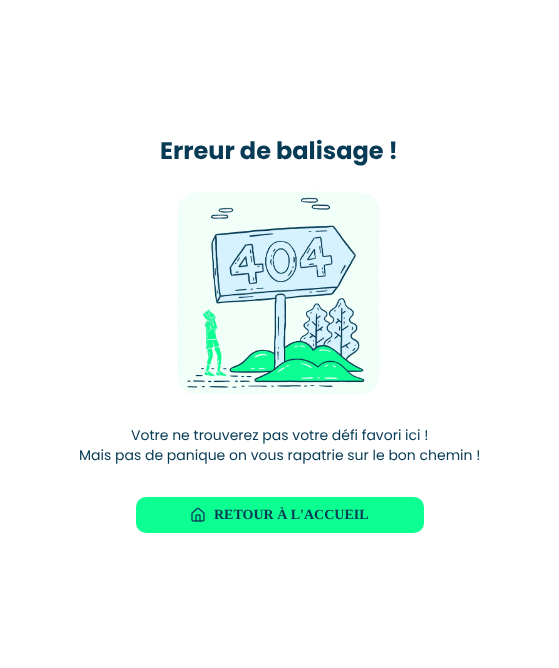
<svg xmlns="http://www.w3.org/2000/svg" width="559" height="668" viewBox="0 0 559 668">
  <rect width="100%" height="100%" fill="#ffffff"/>
  <text x="160" y="159" font-family="Poppins" font-size="24" font-weight="bold" fill="#063a55">Erreur de balisage !</text>
  <image x="177" y="191" width="203" height="204" href="img1.png"/>
  <text x="131" y="440" font-family="Poppins" font-size="14" fill="#063a55">Votre ne trouverez pas votre défi favori ici !</text>
  <text x="79" y="460" font-family="Poppins" font-size="14" fill="#063a55">Mais pas de panique on vous rapatrie sur le bon chemin !</text>
  <rect x="136" y="497" width="288" height="36" rx="10" fill="#0cff91"/>
  <image x="191" y="507" width="14" height="15" href="img2.png"/>
  <text x="214" y="519" font-family="Liberation Serif" font-size="14" font-weight="bold" fill="#063a55">RETOUR À L'ACCUEIL</text>
</svg>
